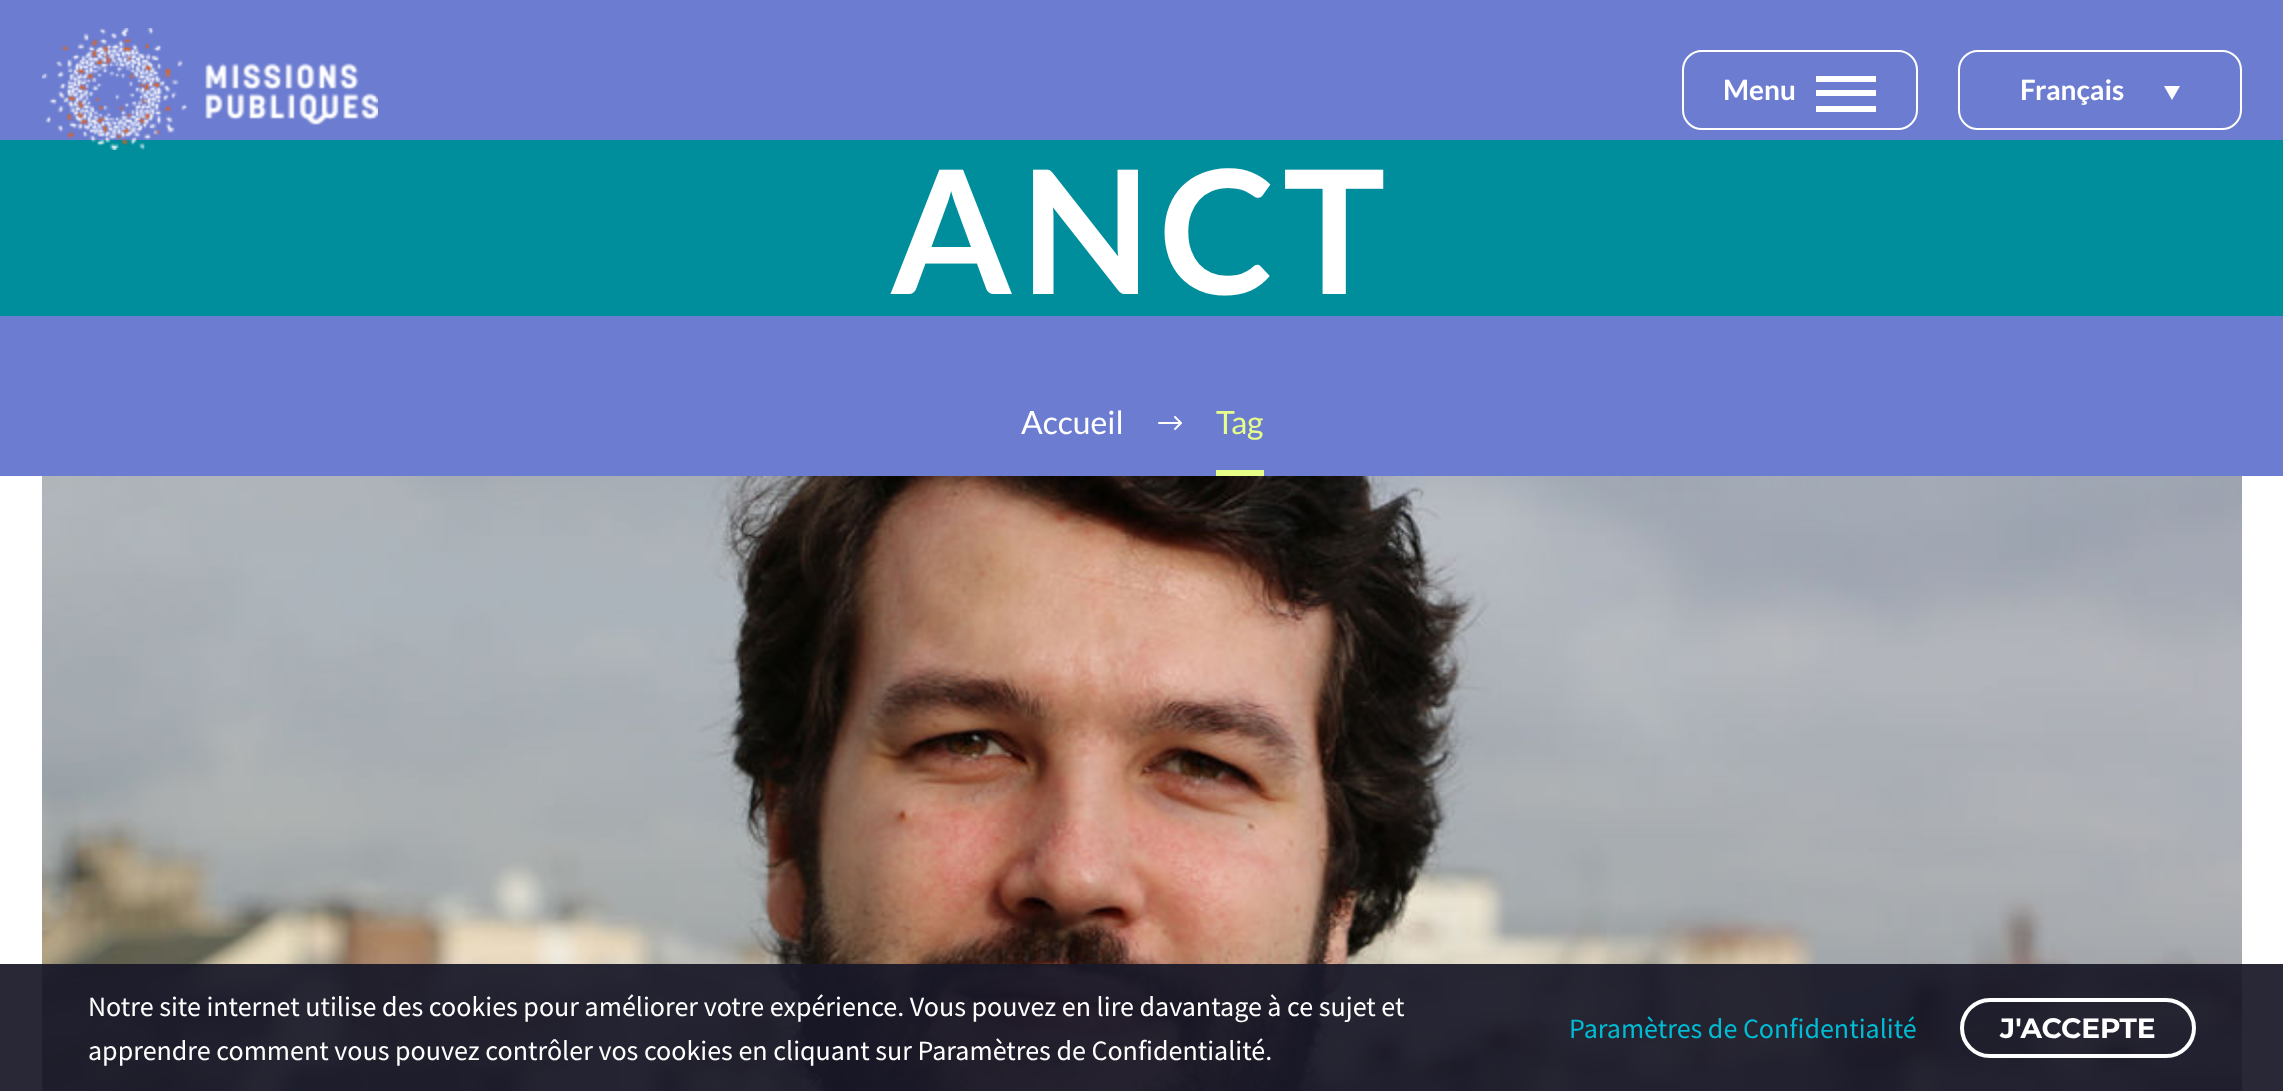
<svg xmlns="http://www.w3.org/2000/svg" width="2283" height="1091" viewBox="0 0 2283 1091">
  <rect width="100%" height="100%" fill="#ffffff"/>
  <rect x="0" y="0" width="2283" height="476" fill="#6c7cd0"/>
  <rect x="0" y="140" width="2283" height="176" fill="#008d9c"/>
  <image x="42" y="28" width="336" height="122" href="img1.png"/>
  <rect x="1683" y="51" width="234" height="78" rx="19" fill="none" stroke="#ffffff" stroke-width="2"/>
  <text x="1723" y="100" font-family="Lato" font-size="28" font-weight="bold" fill="#ffffff">Menu</text>
  <rect x="1816" y="76" width="60" height="6" fill="#ffffff"/>
  <rect x="1816" y="90" width="60" height="6" fill="#ffffff"/>
  <rect x="1816" y="106" width="60" height="6" fill="#ffffff"/>
  <rect x="1959" y="51" width="282" height="78" rx="19" fill="none" stroke="#ffffff" stroke-width="2"/>
  <text x="2020" y="100" font-family="Lato" font-size="28" font-weight="bold" fill="#ffffff">Français</text>
  <path d="M2164 86H2180L2172 100Z" fill="#ffffff"/>
  <text x="890" y="294" font-family="Lato" font-size="172" font-weight="bold" letter-spacing="8.5" fill="#ffffff">ANCT</text>
  <text x="1021" y="434" font-family="Lato" font-size="32" fill="#ffffff">Accueil</text>
  <image x="1158" y="416" width="24" height="14" href="img2.png"/>
  <rect x="1216" y="470" width="48" height="6" fill="#e7ff89"/>
  <text x="1216" y="434" font-family="Lato" font-size="32" fill="#e7ff89">Tag</text>
  <image x="42" y="476" width="2200" height="615" href="img3.png"/>
  <rect x="0" y="964" width="2283" height="127" fill="#181828" fill-opacity="0.93"/>
  <text x="88" y="1016" font-family="Source Sans Pro" font-size="28" fill="#ffffff">Notre site internet utilise des cookies pour améliorer votre expérience. Vous pouvez en lire davantage à ce sujet et</text>
  <text x="88" y="1060" font-family="Source Sans Pro" font-size="28" fill="#ffffff">apprendre comment vous pouvez contrôler vos cookies en cliquant sur Paramètres de Confidentialité.</text>
  <text x="1569" y="1038" font-family="Source Sans Pro" font-size="28" fill="#00bcd4">Paramètres de Confidentialité</text>
  <rect x="1962" y="1000" width="232" height="56" rx="28" fill="none" stroke="#ffffff" stroke-width="4"/>
  <text x="2000" y="1038" font-family="Montserrat" font-size="28" font-weight="bold" fill="#ffffff">J'ACCEPTE</text>
</svg>
